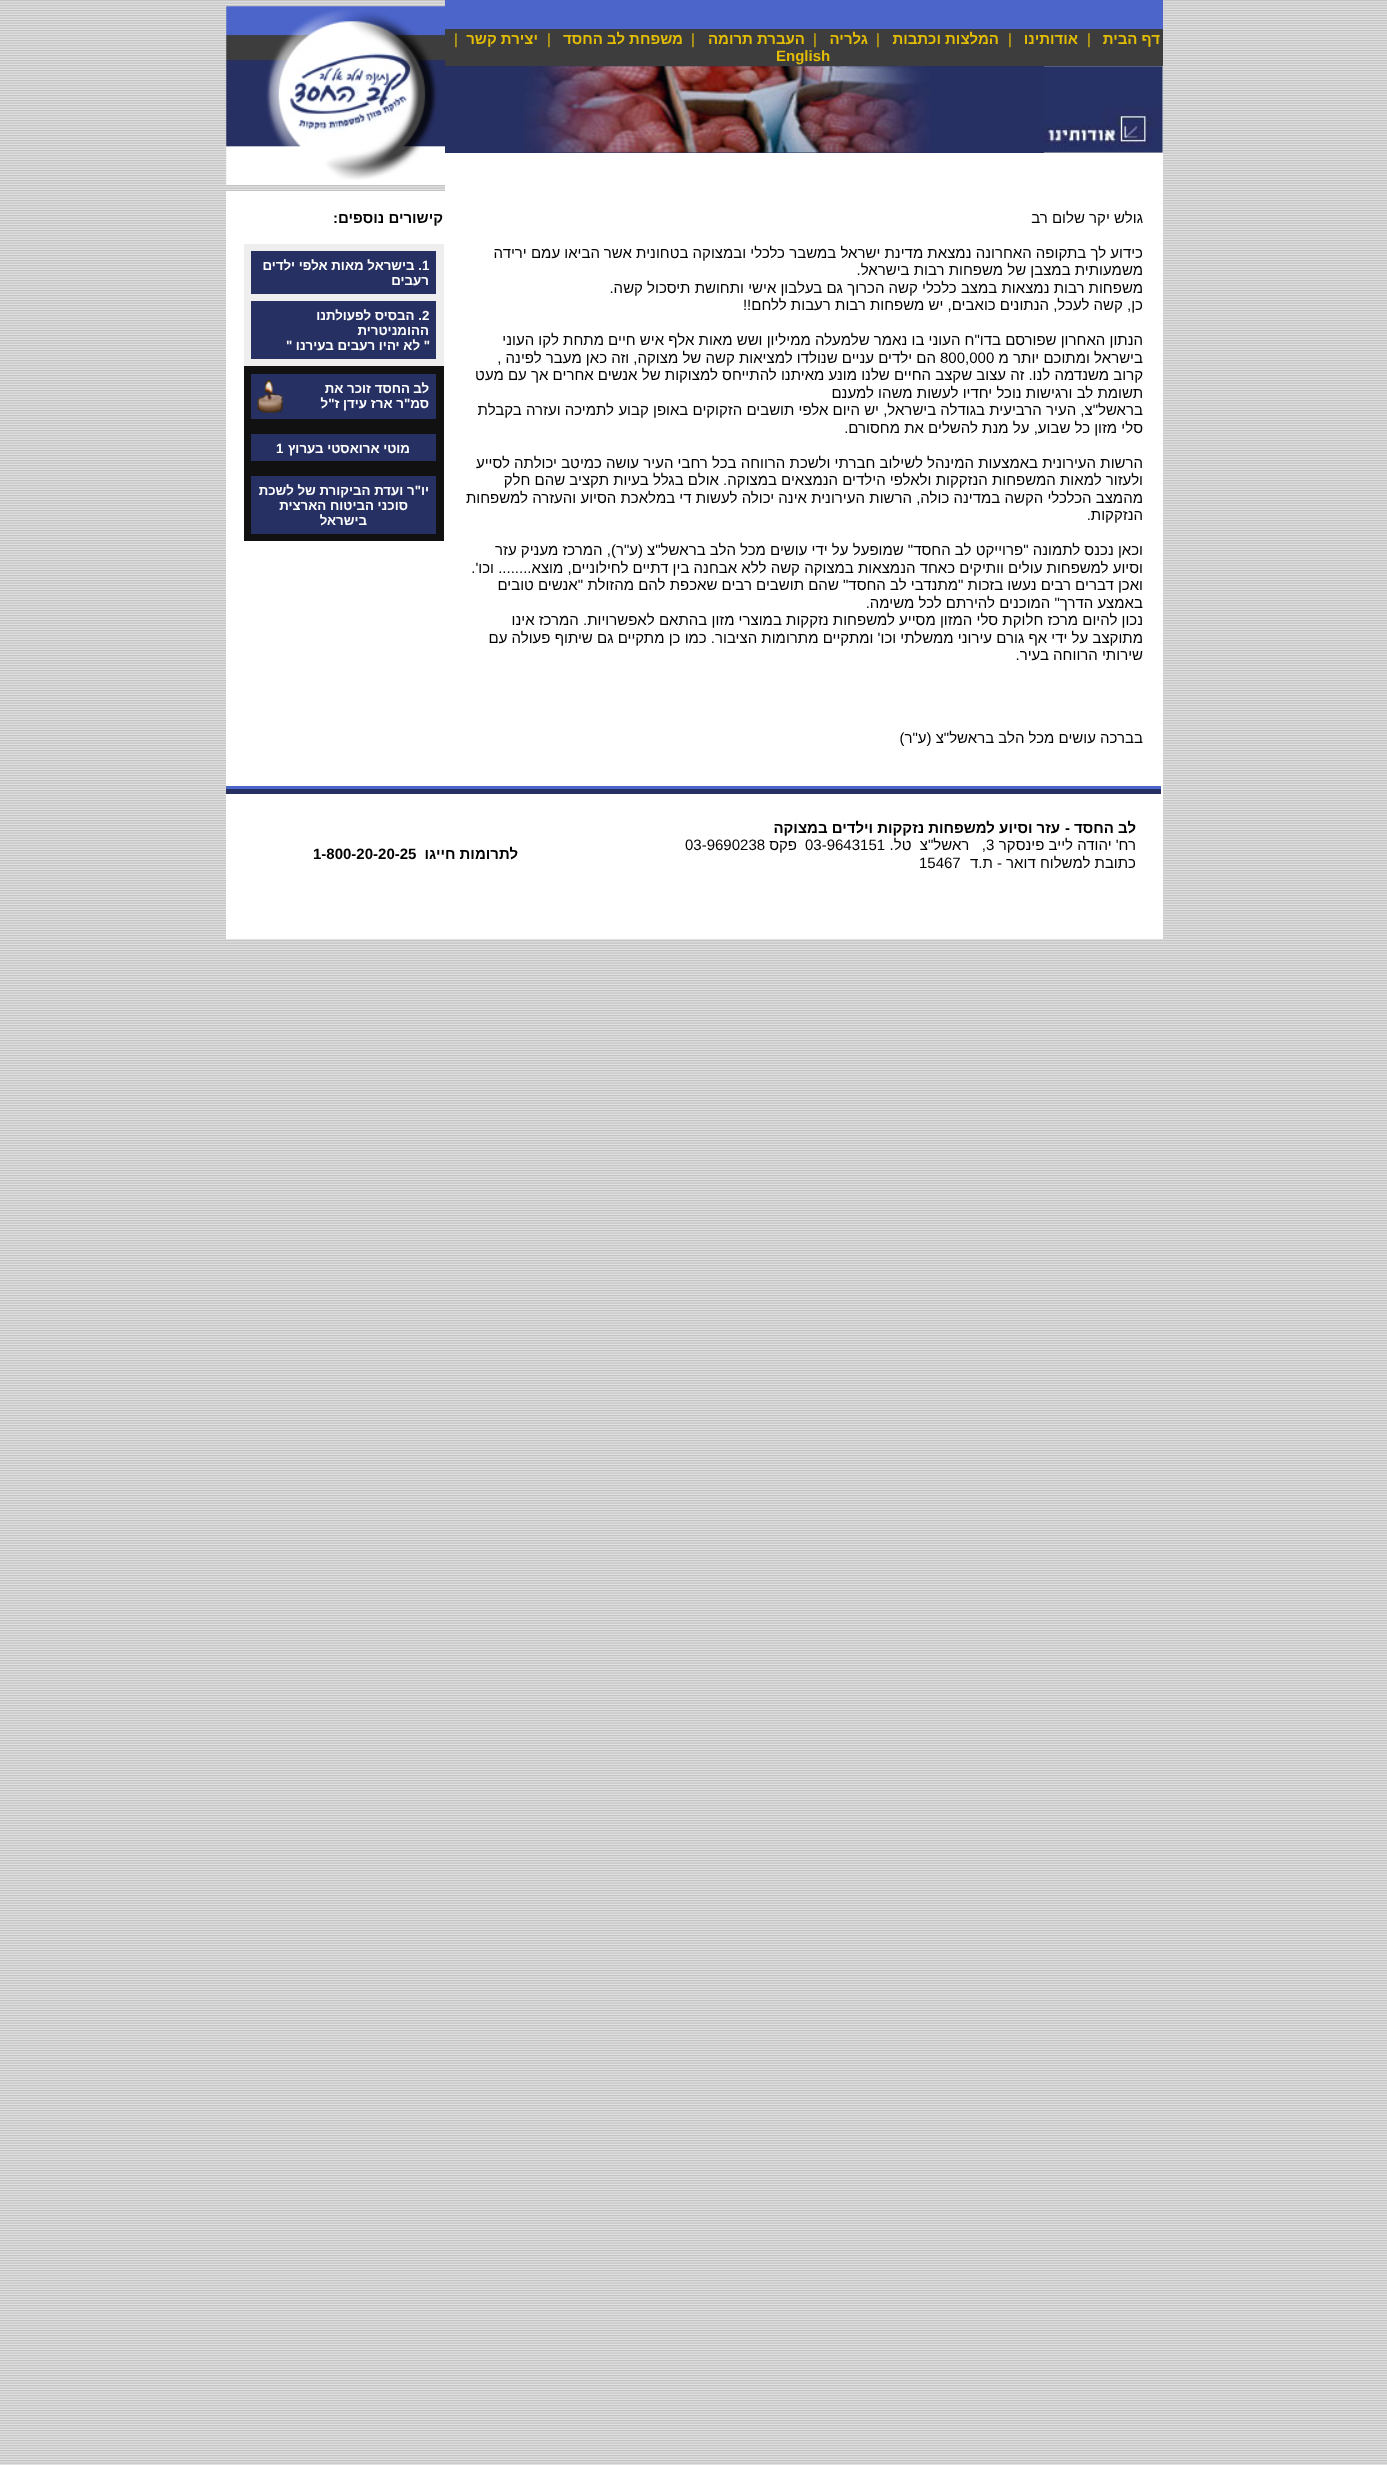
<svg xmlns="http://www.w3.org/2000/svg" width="1387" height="2465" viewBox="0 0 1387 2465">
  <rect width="100%" height="100%" fill="#ffffff"/>
  <image x="0" y="0" width="1387" height="2465" href="img1.png"/>
  <rect x="445" y="0" width="718" height="29" fill="#4c65cb"/>
  <image x="226" y="6" width="219" height="179" href="img2.png"/>
  <rect x="445" y="29" width="718" height="37" fill="#3d3d3d"/>
  <text x="1160" y="44" font-family="Liberation Sans" font-size="15" font-weight="bold" direction="rtl" fill="#e2bc05">דף הבית</text>
  <text x="1087" y="44" font-family="Liberation Sans" font-size="15" fill="#e2bc05">|</text>
  <text x="1078" y="44" font-family="Liberation Sans" font-size="15" font-weight="bold" direction="rtl" fill="#e2bc05">אודותינו</text>
  <text x="1008" y="44" font-family="Liberation Sans" font-size="15" fill="#e2bc05">|</text>
  <text x="999" y="44" font-family="Liberation Sans" font-size="15" font-weight="bold" direction="rtl" fill="#e2bc05">המלצות וכתבות</text>
  <text x="876" y="44" font-family="Liberation Sans" font-size="15" fill="#e2bc05">|</text>
  <text x="868" y="44" font-family="Liberation Sans" font-size="15" font-weight="bold" direction="rtl" fill="#e2bc05">גלריה</text>
  <text x="813" y="44" font-family="Liberation Sans" font-size="15" fill="#e2bc05">|</text>
  <text x="805" y="44" font-family="Liberation Sans" font-size="15" font-weight="bold" direction="rtl" fill="#e2bc05">העברת תרומה</text>
  <text x="691" y="44" font-family="Liberation Sans" font-size="15" fill="#e2bc05">|</text>
  <text x="683" y="44" font-family="Liberation Sans" font-size="15" font-weight="bold" direction="rtl" fill="#e2bc05">משפחת לב החסד</text>
  <text x="547" y="44" font-family="Liberation Sans" font-size="15" fill="#e2bc05">|</text>
  <text x="538" y="44" font-family="Liberation Sans" font-size="15" font-weight="bold" direction="rtl" fill="#e2bc05">יצירת קשר</text>
  <text x="454" y="44" font-family="Liberation Sans" font-size="15" fill="#e2bc05">|</text>
  <text x="776" y="61" font-family="Liberation Sans" font-size="15" font-weight="bold" fill="#e2bc05">English</text>
  <image x="1044" y="66" width="119" height="87" href="img3.png"/>
  <rect x="445" y="66" width="599" height="87" fill="#263063"/>
  <image x="524" y="66" width="406" height="87" href="img4.png"/>
  <rect x="445" y="153" width="718" height="38" fill="#ffffff"/>
  <rect x="226" y="191" width="937" height="748" fill="#ffffff"/>
  <text x="1143" y="223" font-family="Liberation Sans" font-size="15" direction="rtl" fill="#000000">גולש יקר שלום רב</text>
  <text x="1143" y="258" font-family="Liberation Sans" font-size="15" direction="rtl" fill="#000000">כידוע לך בתקופה האחרונה נמצאת מדינת ישראל במשבר כלכלי ובמצוקה בטחונית אשר</text>
  <text x="600" y="258" font-family="Liberation Sans" font-size="15" direction="rtl" fill="#000000">הביאו עמם ירידה</text>
  <text x="1143" y="275" font-family="Liberation Sans" font-size="15" direction="rtl" fill="#000000">משמעותית במצבן של משפחות רבות בישראל.</text>
  <text x="1143" y="293" font-family="Liberation Sans" font-size="15" direction="rtl" fill="#000000">משפחות רבות נמצאות במצב כלכלי קשה הכרוך גם בעלבון אישי ותחושת תיסכול קשה.</text>
  <text x="1143" y="310" font-family="Liberation Sans" font-size="15" direction="rtl" fill="#000000">כן, קשה לעכל, הנתונים כואבים, יש משפחות רבות רעבות ללחם!!</text>
  <text x="1143" y="345" font-family="Liberation Sans" font-size="15" direction="rtl" fill="#000000">הנתון האחרון שפורסם בדו"ח העוני בו נאמר שלמעלה ממיליון ושש מאות אלף איש חיים מתחת לקו העוני</text>
  <text x="1143" y="363" font-family="Liberation Sans" font-size="15" direction="rtl" fill="#000000">בישראל ומתוכם יותר מ</text>
  <text x="940" y="363" font-family="Liberation Sans" font-size="15" fill="#000000">800,000</text>
  <text x="936" y="363" font-family="Liberation Sans" font-size="15" direction="rtl" fill="#000000">הם ילדים עניים שנולדו למציאות קשה של מצוקה, וזה כאן מעבר לפינה ,</text>
  <text x="1143" y="380" font-family="Liberation Sans" font-size="15" direction="rtl" fill="#000000">קרוב משנדמה לנו. זה עצוב שקצב החיים שלנו מונע מאיתנו להתייחס למצוקות של אנשים אחרים אך עם מעט</text>
  <text x="1143" y="398" font-family="Liberation Sans" font-size="15" direction="rtl" fill="#000000">תשומת לב ורגישות נוכל יחדיו לעשות משהו למענם</text>
  <text x="1143" y="415" font-family="Liberation Sans" font-size="15" direction="rtl" fill="#000000">בראשל"צ, העיר הרביעית בגודלה בישראל, יש היום אלפי תושבים הזקוקים באופן קבוע</text>
  <text x="614" y="415" font-family="Liberation Sans" font-size="15" direction="rtl" fill="#000000">לתמיכה ועזרה בקבלת</text>
  <text x="1143" y="433" font-family="Liberation Sans" font-size="15" direction="rtl" fill="#000000">סלי מזון כל שבוע, על מנת להשלים את מחסורם.</text>
  <text x="1143" y="468" font-family="Liberation Sans" font-size="15" direction="rtl" fill="#000000">הרשות העירונית באמצעות המינהל לשילוב חברתי ולשכת הרווחה בכל רחבי העיר עושה</text>
  <text x="602" y="468" font-family="Liberation Sans" font-size="15" direction="rtl" fill="#000000">כמיטב יכולתה לסייע</text>
  <text x="1143" y="485" font-family="Liberation Sans" font-size="15" direction="rtl" fill="#000000">ולעזור למאות המשפחות הנזקקות ולאלפי הילדים הנמצאים</text>
  <text x="777" y="485" font-family="Liberation Sans" font-size="15" direction="rtl" fill="#000000">במצוקה. אולם בגלל בעיות תקציב שהם חלק</text>
  <text x="1143" y="503" font-family="Liberation Sans" font-size="15" direction="rtl" fill="#000000">מהמצב הכלכלי הקשה במדינה כולה, הרשות</text>
  <text x="865" y="503" font-family="Liberation Sans" font-size="15" direction="rtl" fill="#000000">העירונית אינה יכולה לעשות די במלאכת הסיוע והעזרה למשפחות</text>
  <text x="1143" y="520" font-family="Liberation Sans" font-size="15" direction="rtl" fill="#000000">הנזקקות.</text>
  <text x="1143" y="555" font-family="Liberation Sans" font-size="15" direction="rtl" fill="#000000">וכאן נכנס לתמונה "פרוייקט לב החסד" שמופעל על ידי עושים מכל הלב בראשל"צ (ע"ר), המרכז מעניק עזר</text>
  <text x="1143" y="573" font-family="Liberation Sans" font-size="15" direction="rtl" fill="#000000">וסיוע למשפחות עולים</text>
  <text x="1004" y="573" font-family="Liberation Sans" font-size="15" direction="rtl" fill="#000000">וותיקים כאחד הנמצאות במצוקה קשה ללא אבחנה בין דתיים לחילוניים, מוצא........</text>
  <text x="494" y="573" font-family="Liberation Sans" font-size="15" direction="rtl" fill="#000000">וכו'.</text>
  <text x="1143" y="590" font-family="Liberation Sans" font-size="15" direction="rtl" fill="#000000">ואכן דברים רבים נעשו בזכות "מתנדבי לב החסד" שהם תושבים רבים שאכפת להם מהזולת</text>
  <text x="583" y="590" font-family="Liberation Sans" font-size="15" direction="rtl" fill="#000000">"אנשים טובים</text>
  <text x="1143" y="608" font-family="Liberation Sans" font-size="15" direction="rtl" fill="#000000">באמצע הדרך" המוכנים להירתם לכל משימה.</text>
  <text x="1143" y="625" font-family="Liberation Sans" font-size="15" direction="rtl" fill="#000000">נכון להיום מרכז חלוקת סלי המזון מסייע למשפחות נזקקות במוצרי מזון בהתאם לאפשרויות. המרכז אינו</text>
  <text x="1143" y="643" font-family="Liberation Sans" font-size="15" direction="rtl" fill="#000000">מתוקצב על ידי אף גורם עירוני ממשלתי וכו' ומתקיים מתרומות הציבור. כמו כן מתקיים גם שיתוף פעולה עם</text>
  <text x="1143" y="660" font-family="Liberation Sans" font-size="15" direction="rtl" fill="#000000">שירותי הרווחה בעיר.</text>
  <text x="1143" y="743" font-family="Liberation Sans" font-size="15" direction="rtl" fill="#000000">בברכה עושים מכל הלב בראשל"צ (ע"ר)</text>
  <text x="443" y="223" font-family="Liberation Sans" font-size="15" font-weight="bold" direction="rtl" fill="#000000">קישורים נוספים:</text>
  <rect x="244" y="244" width="200" height="122" fill="#eeeeee"/>
  <rect x="251" y="251" width="185" height="43" fill="#263063"/>
  <text x="422" y="270" font-family="Liberation Sans" font-size="13.3" font-weight="bold" fill="#ffffff">1</text>
  <text x="422" y="270" font-family="Liberation Sans" font-size="13.3" font-weight="bold" direction="rtl" fill="#ffffff">. בישראל מאות אלפי ילדים</text>
  <text x="429" y="285" font-family="Liberation Sans" font-size="13.3" font-weight="bold" direction="rtl" fill="#ffffff">רעבים</text>
  <rect x="251" y="301" width="185" height="58" fill="#263063"/>
  <text x="422" y="320" font-family="Liberation Sans" font-size="13.3" font-weight="bold" fill="#ffffff">2</text>
  <text x="422" y="320" font-family="Liberation Sans" font-size="13.3" font-weight="bold" direction="rtl" fill="#ffffff">. הבסיס לפעולתנו</text>
  <text x="429" y="335" font-family="Liberation Sans" font-size="13.3" font-weight="bold" direction="rtl" fill="#ffffff">ההומניטרית</text>
  <text x="430" y="350" font-family="Liberation Sans" font-size="13.3" font-weight="bold" direction="rtl" fill="#ffffff">" לא יהיו רעבים בעירנו "</text>
  <rect x="244" y="366" width="200" height="8" fill="#111111"/>
  <rect x="436" y="366" width="8" height="60" fill="#111111"/>
  <rect x="244" y="419" width="200" height="15" fill="#111111"/>
  <rect x="244" y="366" width="7" height="60" fill="#111111"/>
  <rect x="251" y="374" width="185" height="45" fill="#263063"/>
  <text x="429" y="393" font-family="Liberation Sans" font-size="13.3" font-weight="bold" direction="rtl" fill="#ffffff">לב</text>
  <text x="410" y="393" font-family="Liberation Sans" font-size="13.3" font-weight="bold" direction="rtl" fill="#ffffff">החסד זוכר את</text>
  <image x="257" y="380" width="26" height="33" href="img5.png"/>
  <text x="429" y="408" font-family="Liberation Sans" font-size="13.3" font-weight="bold" direction="rtl" fill="#ffffff">סמ"ר ארז עידן ז"ל</text>
  <rect x="436" y="426" width="8" height="43" fill="#111111"/>
  <rect x="244" y="461" width="200" height="15" fill="#111111"/>
  <rect x="244" y="426" width="7" height="43" fill="#111111"/>
  <rect x="251" y="434" width="185" height="27" fill="#263063"/>
  <text x="410" y="453" font-family="Liberation Sans" font-size="13.3" font-weight="bold" direction="rtl" fill="#ffffff">מוטי ארואסטי בערוץ</text>
  <text x="276" y="453" font-family="Liberation Sans" font-size="13.3" font-weight="bold" fill="#ffffff">1</text>
  <rect x="436" y="469" width="8" height="72" fill="#111111"/>
  <rect x="244" y="534" width="200" height="7" fill="#111111"/>
  <rect x="244" y="469" width="7" height="72" fill="#111111"/>
  <rect x="251" y="476" width="185" height="58" fill="#263063"/>
  <text x="429" y="495" font-family="Liberation Sans" font-size="13.3" font-weight="bold" direction="rtl" fill="#ffffff">יו"ר ועדת הביקורת של לשכת</text>
  <text x="408" y="510" font-family="Liberation Sans" font-size="13.3" font-weight="bold" direction="rtl" fill="#ffffff">סוכני הביטוח הארצית</text>
  <text x="367" y="525" font-family="Liberation Sans" font-size="13.3" font-weight="bold" direction="rtl" fill="#ffffff">בישראל</text>
  <rect x="226" y="786" width="935" height="3" fill="#4c65cb"/>
  <rect x="226" y="789" width="935" height="5" fill="#273063"/>
  <text x="1136" y="833" font-family="Liberation Sans" font-size="15" font-weight="bold" direction="rtl" fill="#000000">לב החסד -</text>
  <text x="1060" y="833" font-family="Liberation Sans" font-size="15" font-weight="bold" direction="rtl" fill="#000000">עזר וסיוע למשפחות נזקקות וילדים במצוקה</text>
  <text x="1136" y="850" font-family="Liberation Sans" font-size="15" direction="rtl" fill="#000000">רח' יהודה לייב פינסקר</text>
  <text x="986" y="850" font-family="Liberation Sans" font-size="15" fill="#000000">3</text>
  <text x="986" y="850" font-family="Liberation Sans" font-size="15" direction="rtl" fill="#000000" xml:space="preserve">,   ראשל"צ  טל.</text>
  <text x="805" y="850" font-family="Liberation Sans" font-size="15" fill="#000000">03-9643151</text>
  <text x="797" y="850" font-family="Liberation Sans" font-size="15" direction="rtl" fill="#000000">פקס</text>
  <text x="685" y="850" font-family="Liberation Sans" font-size="15" fill="#000000">03-9690238</text>
  <text x="1136" y="868" font-family="Liberation Sans" font-size="15" direction="rtl" fill="#000000">כתובת למשלוח דואר - ת.ד</text>
  <text x="919" y="868" font-family="Liberation Sans" font-size="15" fill="#000000">15467</text>
  <text x="518" y="859" font-family="Liberation Sans" font-size="15" font-weight="bold" direction="rtl" fill="#000000">לתרומות חייגו</text>
  <text x="313" y="859" font-family="Liberation Sans" font-size="15" font-weight="bold" fill="#000000">1-800-20-20-25</text>
</svg>
